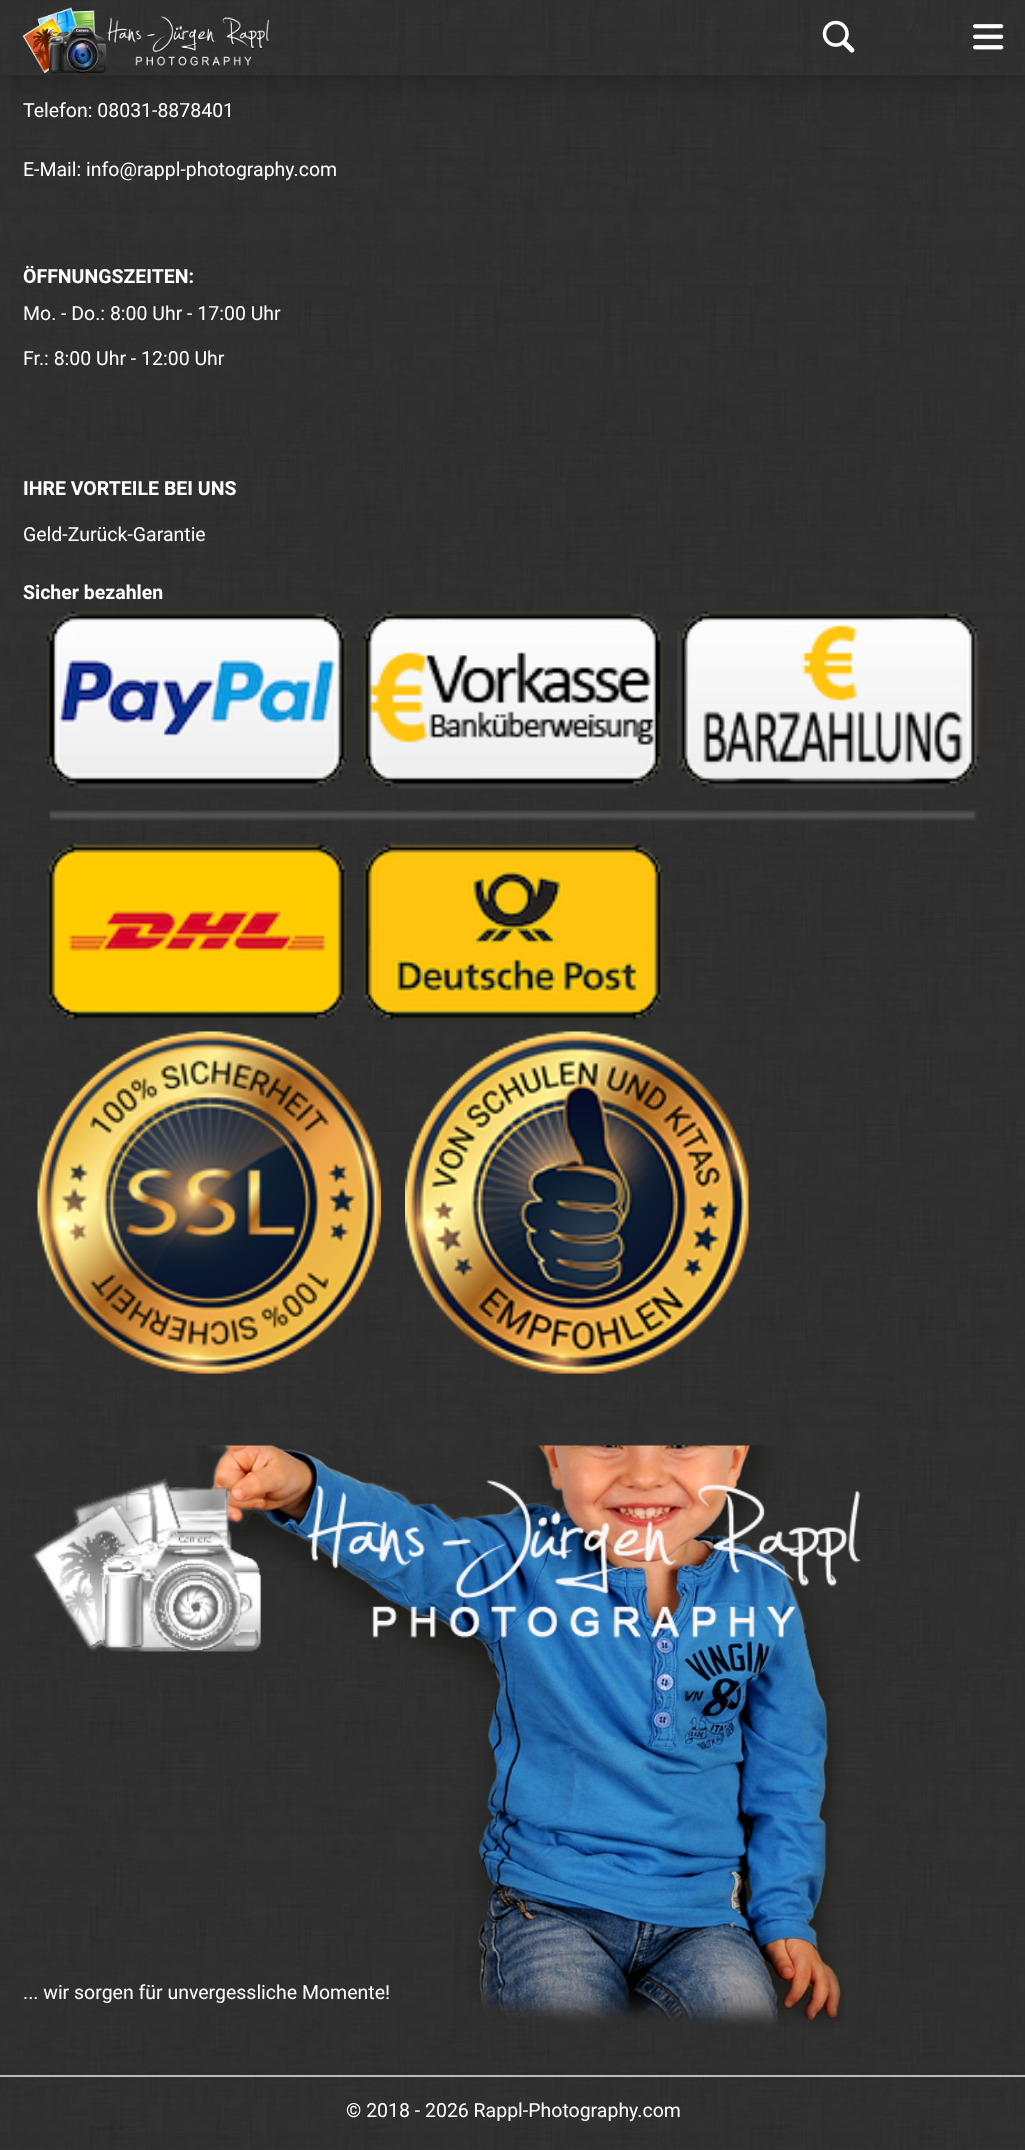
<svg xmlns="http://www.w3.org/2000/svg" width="1025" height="2150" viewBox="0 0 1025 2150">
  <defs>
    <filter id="blur1" x="-50%" y="-200%" width="200%" height="500%"><feGaussianBlur stdDeviation="19"/></filter>
  </defs>
  <rect width="100%" height="100%" fill="#ffffff"/>
  <image x="0" y="75" width="1025" height="2075" href="img6.png"/>
  <rect x="0" y="0" width="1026" height="75" fill="#000000" fill-opacity="0.35" filter="url(#blur1)"/>
  <image x="0" y="0" width="1025" height="75" href="img1.png"/>
  <image x="22" y="7" width="248" height="67" href="img2.png"/>
  <image x="822" y="20" width="33" height="33" href="img3.png"/>
  <image x="906" y="23" width="16" height="8" href="img4.png"/>
  <image x="973" y="24" width="31" height="26" href="img5.png"/>
  <rect x="0" y="2075" width="1025" height="2" fill="#bbbbbb"/>
  <text x="23" y="117" font-family="Roboto" font-size="19.5" fill="#ffffff">Telefon: 08031-8878401</text>
  <text x="23" y="176" font-family="Roboto" font-size="19.5" fill="#ffffff">E-Mail: info@rappl-photography.com</text>
  <text x="23" y="283" font-family="Roboto" font-size="19.5" font-weight="bold" fill="#ffffff">ÖFFNUNGSZEITEN:</text>
  <text x="23" y="320" font-family="Roboto" font-size="19.5" fill="#ffffff">Mo. - Do.: 8:00 Uhr - 17:00 Uhr</text>
  <text x="23" y="365" font-family="Roboto" font-size="19.5" fill="#ffffff">Fr.: 8:00 Uhr - 12:00 Uhr</text>
  <text x="23" y="495" font-family="Roboto" font-size="19.5" font-weight="bold" fill="#ffffff">IHRE VORTEILE BEI UNS</text>
  <text x="23" y="541" font-family="Roboto" font-size="19.5" fill="#ffffff">Geld-Zurück-Garantie</text>
  <text x="23" y="599" font-family="Roboto" font-size="19.5" font-weight="bold" fill="#ffffff">Sicher bezahlen</text>
  <image x="44" y="610" width="936" height="410" href="img7.png"/>
  <image x="37" y="1031" width="344" height="343" href="img8.png"/>
  <image x="405" y="1031" width="344" height="343" href="img9.png"/>
  <image x="196" y="1445" width="649" height="583" href="img10.png"/>
  <image x="31" y="1477" width="831" height="175" href="img11.png"/>
  <text x="23" y="1999" font-family="Roboto" font-size="19.5" fill="#ffffff">... wir sorgen für unvergessliche Momente!</text>
  <text x="346" y="2117" font-family="Roboto" font-size="19.5" fill="#ffffff">© 2018 - 2026 Rappl-Photography.com</text>
</svg>
